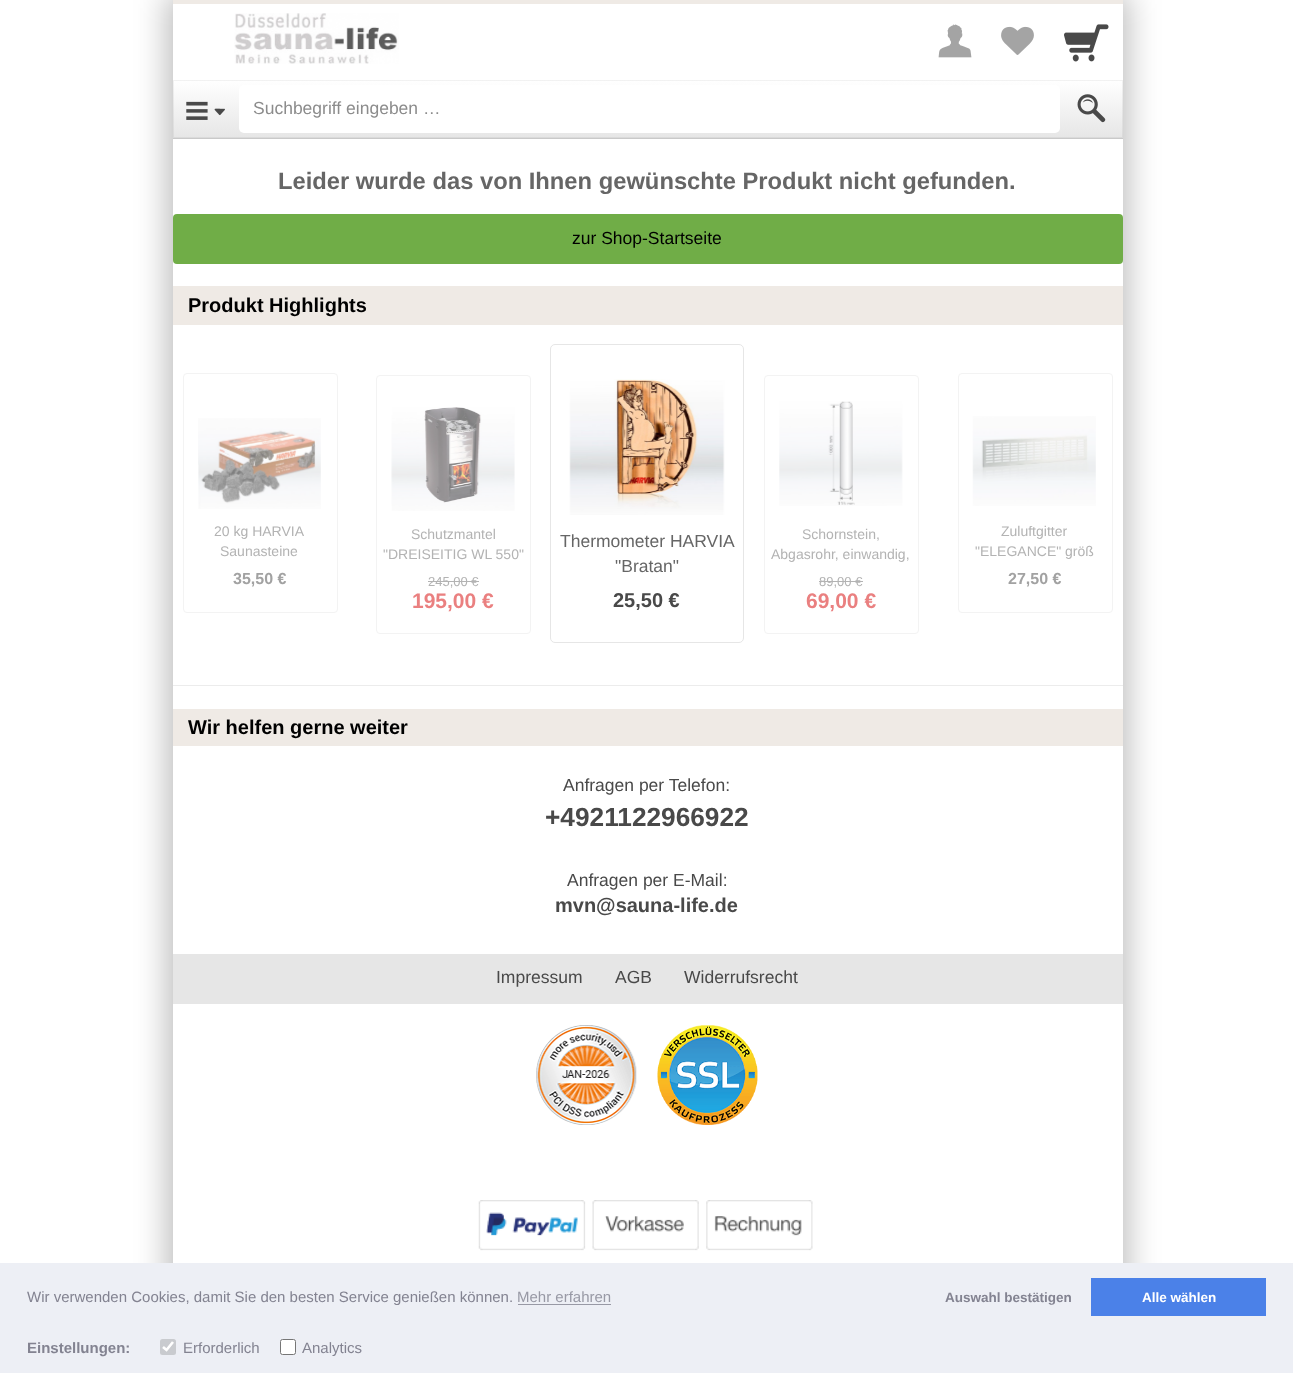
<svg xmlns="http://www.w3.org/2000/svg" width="1293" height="1373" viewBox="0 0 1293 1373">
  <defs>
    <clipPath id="clip1"><path d="M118 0H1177V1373H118ZM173 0H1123V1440H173Z" clip-rule="evenodd"/></clipPath>
    <filter id="blur1" x="-50%" y="-200%" width="200%" height="500%"><feGaussianBlur stdDeviation="15.5"/></filter>
    <linearGradient id="g1" gradientUnits="userSpaceOnUse" x1="648" y1="80" x2="648" y2="138"><stop offset="0" stop-color="#ffffff"/><stop offset="1" stop-color="#e6e6e6"/></linearGradient>
  </defs>
  <rect width="100%" height="100%" fill="#ffffff"/>
  <g clip-path="url(#clip1)">
    <rect x="166" y="-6" width="963" height="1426" fill="#000000" fill-opacity="0.25" filter="url(#blur1)"/>
  </g>
  <rect x="173" y="138" width="950" height="1" fill="#c9c9c9"/>
  <rect x="1122" y="4" width="1" height="76" fill="#ffffff"/>
  <rect x="173" y="0" width="950" height="4" fill="#efeae5"/>
  <image x="234" y="13" width="165" height="51" href="img1.png"/>
  <image x="938" y="24" width="34" height="34" href="img2.png"/>
  <image x="1001" y="26" width="33" height="29" href="img3.png"/>
  <image x="1064" y="24" width="45" height="38" href="img4.png"/>
  <rect x="173" y="80" width="950" height="58" fill="url(#g1)"/>
  <rect x="173.5" y="80.5" width="949" height="57" fill="none" stroke="#000000" stroke-opacity="0.05"/>
  <image x="186" y="101" width="39" height="19" href="img5.png"/>
  <rect x="239" y="85" width="821" height="48" rx="5" fill="#ffffff"/>
  <text x="253" y="114" font-family="Liberation Sans" font-size="17.5" fill="#8c8c8c">Suchbegriff eingeben …</text>
  <image x="1077" y="94" width="29" height="29" href="img6.png"/>
  <text x="278" y="189" font-family="Liberation Sans" font-size="23.75" font-weight="bold" fill="#666666">Leider wurde das von Ihnen gewünschte Produkt nicht gefunden.</text>
  <rect x="173" y="214" width="950" height="50" rx="4" fill="#70ad47"/>
  <text x="572" y="244" font-family="Liberation Sans" font-size="17.5" fill="#000000">zur Shop-Startseite</text>
  <rect x="173" y="286" width="950" height="39" fill="#efeae5"/>
  <text x="188" y="312" font-family="Liberation Sans" font-size="20" font-weight="bold" fill="#000000">Produkt Highlights</text>
  <rect x="183.5" y="373.5" width="154" height="239" rx="3.5" fill="none" stroke="#f3f3f3"/>
  <image x="198" y="418" width="123" height="91" href="img7.png"/>
  <text x="214" y="536" font-family="Liberation Sans" font-size="14" fill="#b3b3b3">20 kg HARVIA</text>
  <text x="220" y="556" font-family="Liberation Sans" font-size="14" fill="#b3b3b3">Saunasteine</text>
  <text x="233" y="584" font-family="Liberation Sans" font-size="16" font-weight="bold" fill="#a2a2a2">35,50 €</text>
  <rect x="376.5" y="375.5" width="154" height="258" rx="3.5" fill="none" stroke="#f3f3f3"/>
  <image x="391" y="407" width="124" height="104" href="img8.png"/>
  <text x="411" y="539" font-family="Liberation Sans" font-size="14" fill="#b3b3b3">Schutzmantel</text>
  <text x="383" y="559" font-family="Liberation Sans" font-size="14" fill="#b3b3b3">"DREISEITIG WL 550"</text>
  <text x="428" y="586" font-family="Liberation Sans" font-size="13" fill="#b3b3b3">245,00 €</text>
  <rect x="428" y="581" width="51" height="1" fill="#b3b3b3"/>
  <text x="412" y="608" font-family="Liberation Sans" font-size="21" font-weight="bold" fill="#ea8080">195,00 €</text>
  <rect x="550.5" y="344.5" width="193" height="298" rx="4.5" fill="none" stroke="#e6e6e6"/>
  <image x="569" y="379" width="156" height="136" href="img9.png"/>
  <text x="560" y="547" font-family="Liberation Sans" font-size="17.5" fill="#666666">Thermometer HARVIA</text>
  <text x="615" y="572" font-family="Liberation Sans" font-size="17.5" fill="#666666">"Bratan"</text>
  <text x="613" y="607" font-family="Liberation Sans" font-size="20" font-weight="bold" fill="#494949">25,50 €</text>
  <rect x="764.5" y="375.5" width="154" height="258" rx="3.5" fill="none" stroke="#f3f3f3"/>
  <image x="779" y="401" width="124" height="105" href="img10.png"/>
  <text x="802" y="539" font-family="Liberation Sans" font-size="14" fill="#b3b3b3">Schornstein,</text>
  <text x="771" y="559" font-family="Liberation Sans" font-size="14" fill="#b3b3b3">Abgasrohr, einwandig,</text>
  <text x="819" y="586" font-family="Liberation Sans" font-size="13" fill="#b3b3b3">89,00 €</text>
  <rect x="819" y="581" width="44" height="1" fill="#b3b3b3"/>
  <text x="806" y="608" font-family="Liberation Sans" font-size="21" font-weight="bold" fill="#ea8080">69,00 €</text>
  <rect x="958.5" y="373.5" width="154" height="239" rx="3.5" fill="none" stroke="#f3f3f3"/>
  <image x="972" y="416" width="124" height="90" href="img11.png"/>
  <text x="1001" y="536" font-family="Liberation Sans" font-size="14" fill="#b3b3b3">Zuluftgitter</text>
  <text x="975" y="556" font-family="Liberation Sans" font-size="14" fill="#b3b3b3">"ELEGANCE" größ</text>
  <text x="1008" y="584" font-family="Liberation Sans" font-size="16" font-weight="bold" fill="#a2a2a2">27,50 €</text>
  <rect x="173" y="685" width="950" height="1" fill="#ececec"/>
  <rect x="1122" y="746" width="1" height="517" fill="#ffffff"/>
  <rect x="173" y="709" width="950" height="37" fill="#efeae5"/>
  <text x="188" y="734" font-family="Liberation Sans" font-size="20" font-weight="bold" fill="#000000">Wir helfen gerne weiter</text>
  <text x="563" y="791" font-family="Liberation Sans" font-size="17.5" fill="#494949">Anfragen per Telefon:</text>
  <text x="545" y="826" font-family="Liberation Sans" font-size="26.25" font-weight="bold" fill="#494949">+4921122966922</text>
  <text x="567" y="886" font-family="Liberation Sans" font-size="17.5" fill="#494949">Anfragen per E-Mail:</text>
  <text x="555" y="912" font-family="Liberation Sans" font-size="20" font-weight="bold" fill="#494949">mvn@sauna-life.de</text>
  <rect x="173" y="954" width="950" height="50" fill="#e6e6e6"/>
  <text x="496" y="983" font-family="Liberation Sans" font-size="17.5" fill="#494949">Impressum</text>
  <text x="615" y="983" font-family="Liberation Sans" font-size="17.5" fill="#494949">AGB</text>
  <text x="684" y="983" font-family="Liberation Sans" font-size="17.5" fill="#494949">Widerrufsrecht</text>
  <image x="536" y="1025" width="101" height="100" href="img12.png"/>
  <image x="657" y="1025" width="101" height="100" href="img13.png"/>
  <image x="478" y="1200" width="108" height="51" href="img14.png"/>
  <image x="592" y="1200" width="107" height="51" href="img15.png"/>
  <image x="706" y="1200" width="107" height="51" href="img16.png"/>
  <rect x="0" y="1263" width="1293" height="110" fill="#edeff5"/>
  <text x="27" y="1302" font-family="Liberation Sans" font-size="15" fill="#838391">Wir verwenden Cookies, damit Sie den besten Service genießen können.</text>
  <text x="517" y="1302" font-family="Liberation Sans" font-size="15" fill="#9899a5">Mehr erfahren</text>
  <rect x="518" y="1304" width="93" height="1" fill="#9899a5"/>
  <text x="945" y="1302" font-family="Liberation Sans" font-size="13.5" font-weight="bold" fill="#838391">Auswahl bestätigen</text>
  <rect x="1091" y="1278" width="175" height="38" fill="#4b81e8"/>
  <text x="1142" y="1302" font-family="Liberation Sans" font-size="13.5" font-weight="bold" fill="#ffffff">Alle wählen</text>
  <text x="27" y="1353" font-family="Liberation Sans" font-size="15" font-weight="bold" fill="#838391">Einstellungen:</text>
  <rect x="160" y="1339" width="16" height="16" rx="2.5" fill="#c9cbcf"/>
  <path d="M163 1347L166.5 1350L173 1342" fill="none" stroke="#ffffff" stroke-width="2.6"/>
  <text x="183" y="1353" font-family="Liberation Sans" font-size="15" fill="#838391">Erforderlich</text>
  <rect x="280.5" y="1339.5" width="15" height="15" rx="2" fill="#ffffff" stroke="#767676"/>
  <text x="302" y="1353" font-family="Liberation Sans" font-size="15" fill="#838391">Analytics</text>
</svg>
